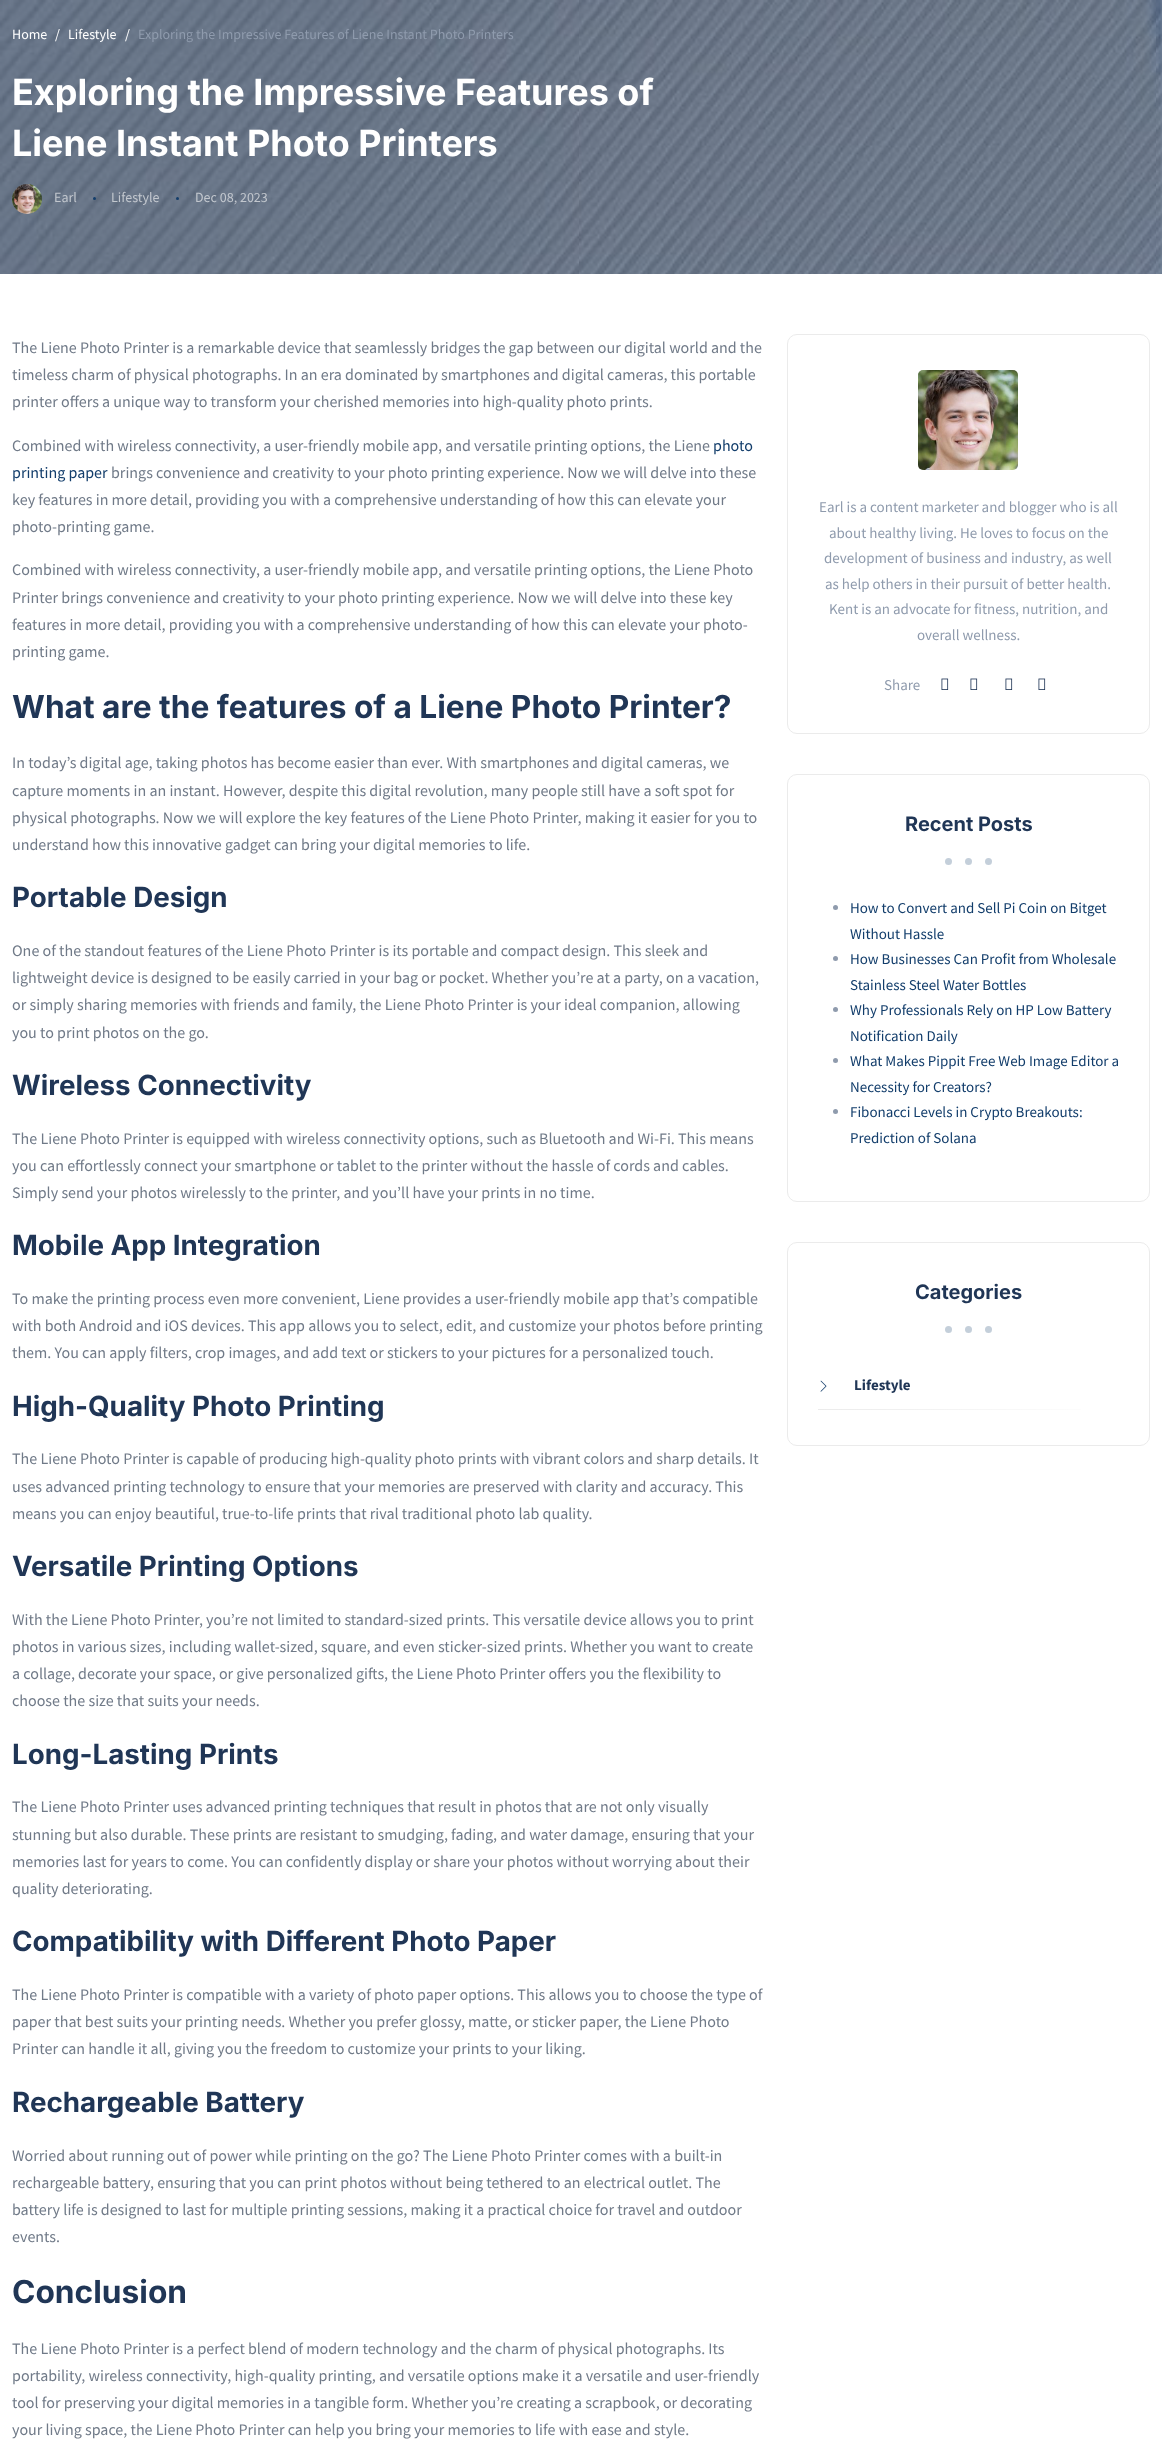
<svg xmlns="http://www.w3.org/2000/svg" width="1162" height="2453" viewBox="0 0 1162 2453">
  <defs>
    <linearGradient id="g1" gradientUnits="userSpaceOnUse" x1="818" y1="1410" x2="1119" y2="1410"><stop offset="0" stop-color="#ebebeb"/><stop offset="1" stop-color="#ffffff"/></linearGradient>
  </defs>
  <rect width="100%" height="100%" fill="#ffffff"/>
  <rect x="1160" y="0" width="2" height="274" fill="#79869a"/>
  <image x="0" y="0" width="1162" height="274" href="img1.png"/>
  <text x="12" y="39" font-family="Source Sans Pro" font-size="14" fill="#ffffff">Home</text>
  <text x="55" y="39" font-family="Source Sans Pro" font-size="14" fill="#ffffff">/</text>
  <text x="68" y="39" font-family="Source Sans Pro" font-size="14" fill="#ffffff">Lifestyle</text>
  <text x="125" y="39" font-family="Source Sans Pro" font-size="14" fill="#ffffff">/</text>
  <text x="138" y="39" font-family="Source Sans Pro" font-size="14" fill="#8f9bad">Exploring the Impressive Features of Liene Instant Photo Printers</text>
  <text x="12" y="105" font-family="Inter" font-size="36" font-weight="bold" fill="#ffffff">Exploring the Impressive Features of</text>
  <text x="12" y="156" font-family="Inter" font-size="36" font-weight="bold" fill="#ffffff">Liene Instant Photo Printers</text>
  <image x="12" y="184" width="30" height="30" href="img2.png"/>
  <text x="54" y="202" font-family="Source Sans Pro" font-size="14" fill="#c2c7ce">Earl</text>
  <circle cx="94.5" cy="198.5" r="1.5" fill="#123d6b"/>
  <text x="111" y="202" font-family="Source Sans Pro" font-size="14" fill="#c2c7ce">Lifestyle</text>
  <circle cx="177.5" cy="198.5" r="1.5" fill="#123d6b"/>
  <text x="195" y="202" font-family="Source Sans Pro" font-size="14" fill="#c2c7ce">Dec 08, 2023</text>
  <text x="12" y="353" font-family="Source Sans Pro" font-size="16" fill="#707a88">The Liene Photo Printer is a remarkable device that seamlessly bridges the gap between our digital world and the</text>
  <text x="12" y="380" font-family="Source Sans Pro" font-size="16" fill="#707a88">timeless charm of physical photographs. In an era dominated by smartphones and digital cameras, this portable</text>
  <text x="12" y="407" font-family="Source Sans Pro" font-size="16" fill="#707a88">printer offers a unique way to transform your cherished memories into high-quality photo prints.</text>
  <text x="12" y="451" font-family="Source Sans Pro" font-size="16" fill="#707a88">Combined with wireless connectivity, a user-friendly mobile app, and versatile printing options, the Liene</text>
  <text x="713" y="451" font-family="Source Sans Pro" font-size="16" fill="#123d6b">photo</text>
  <text x="12" y="478" font-family="Source Sans Pro" font-size="16" fill="#123d6b">printing paper</text>
  <text x="111" y="478" font-family="Source Sans Pro" font-size="16" fill="#707a88">brings convenience and creativity to your photo printing experience. Now we will delve into these</text>
  <text x="12" y="505" font-family="Source Sans Pro" font-size="16" fill="#707a88">key features in more detail, providing you with a comprehensive understanding of how this can elevate your</text>
  <text x="12" y="532" font-family="Source Sans Pro" font-size="16" fill="#707a88">photo-printing game.</text>
  <text x="12" y="575" font-family="Source Sans Pro" font-size="16" fill="#707a88">Combined with wireless connectivity, a user-friendly mobile app, and versatile printing options, the Liene Photo</text>
  <text x="12" y="603" font-family="Source Sans Pro" font-size="16" fill="#707a88">Printer brings convenience and creativity to your photo printing experience. Now we will delve into these key</text>
  <text x="12" y="630" font-family="Source Sans Pro" font-size="16" fill="#707a88">features in more detail, providing you with a comprehensive understanding of how this can elevate your photo-</text>
  <text x="12" y="657" font-family="Source Sans Pro" font-size="16" fill="#707a88">printing game.</text>
  <text x="12" y="718" font-family="Inter" font-size="31.7" font-weight="bold" fill="#203656">What are the features of a Liene Photo Printer?</text>
  <text x="12" y="768" font-family="Source Sans Pro" font-size="16" fill="#707a88">In today’s digital age, taking photos has become easier than ever. With smartphones and digital cameras, we</text>
  <text x="12" y="796" font-family="Source Sans Pro" font-size="16" fill="#707a88">capture moments in an instant. However, despite this digital revolution, many people still have a soft spot for</text>
  <text x="12" y="823" font-family="Source Sans Pro" font-size="16" fill="#707a88">physical photographs. Now we will explore the key features of the Liene Photo Printer, making it easier for you to</text>
  <text x="12" y="850" font-family="Source Sans Pro" font-size="16" fill="#707a88">understand how this innovative gadget can bring your digital memories to life.</text>
  <text x="12" y="907" font-family="Inter" font-size="27.75" font-weight="bold" fill="#203656">Portable Design</text>
  <text x="12" y="956" font-family="Source Sans Pro" font-size="16" fill="#707a88">One of the standout features of the Liene Photo Printer is its portable and compact design. This sleek and</text>
  <text x="12" y="983" font-family="Source Sans Pro" font-size="16" fill="#707a88">lightweight device is designed to be easily carried in your bag or pocket. Whether you’re at a party, on a vacation,</text>
  <text x="12" y="1010" font-family="Source Sans Pro" font-size="16" fill="#707a88">or simply sharing memories with friends and family, the Liene Photo Printer is your ideal companion, allowing</text>
  <text x="12" y="1038" font-family="Source Sans Pro" font-size="16" fill="#707a88">you to print photos on the go.</text>
  <text x="12" y="1095" font-family="Inter" font-size="27.75" font-weight="bold" fill="#203656">Wireless Connectivity</text>
  <text x="12" y="1144" font-family="Source Sans Pro" font-size="16" fill="#707a88">The Liene Photo Printer is equipped with wireless connectivity options, such as Bluetooth and Wi-Fi. This means</text>
  <text x="12" y="1171" font-family="Source Sans Pro" font-size="16" fill="#707a88">you can effortlessly connect your smartphone or tablet to the printer without the hassle of cords and cables.</text>
  <text x="12" y="1198" font-family="Source Sans Pro" font-size="16" fill="#707a88">Simply send your photos wirelessly to the printer, and you’ll have your prints in no time.</text>
  <text x="12" y="1255" font-family="Inter" font-size="27.75" font-weight="bold" fill="#203656">Mobile App Integration</text>
  <text x="12" y="1304" font-family="Source Sans Pro" font-size="16" fill="#707a88">To make the printing process even more convenient, Liene provides a user-friendly mobile app that’s compatible</text>
  <text x="12" y="1331" font-family="Source Sans Pro" font-size="16" fill="#707a88">with both Android and iOS devices. This app allows you to select, edit, and customize your photos before printing</text>
  <text x="12" y="1358" font-family="Source Sans Pro" font-size="16" fill="#707a88">them. You can apply filters, crop images, and add text or stickers to your pictures for a personalized touch.</text>
  <text x="12" y="1416" font-family="Inter" font-size="27.75" font-weight="bold" fill="#203656">High-Quality Photo Printing</text>
  <text x="12" y="1464" font-family="Source Sans Pro" font-size="16" fill="#707a88">The Liene Photo Printer is capable of producing high-quality photo prints with vibrant colors and sharp details. It</text>
  <text x="12" y="1492" font-family="Source Sans Pro" font-size="16" fill="#707a88">uses advanced printing technology to ensure that your memories are preserved with clarity and accuracy. This</text>
  <text x="12" y="1519" font-family="Source Sans Pro" font-size="16" fill="#707a88">means you can enjoy beautiful, true-to-life prints that rival traditional photo lab quality.</text>
  <text x="12" y="1576" font-family="Inter" font-size="27.75" font-weight="bold" fill="#203656">Versatile Printing Options</text>
  <text x="12" y="1625" font-family="Source Sans Pro" font-size="16" fill="#707a88">With the Liene Photo Printer, you’re not limited to standard-sized prints. This versatile device allows you to print</text>
  <text x="12" y="1652" font-family="Source Sans Pro" font-size="16" fill="#707a88">photos in various sizes, including wallet-sized, square, and even sticker-sized prints. Whether you want to create</text>
  <text x="12" y="1679" font-family="Source Sans Pro" font-size="16" fill="#707a88">a collage, decorate your space, or give personalized gifts, the Liene Photo Printer offers you the flexibility to</text>
  <text x="12" y="1706" font-family="Source Sans Pro" font-size="16" fill="#707a88">choose the size that suits your needs.</text>
  <text x="12" y="1764" font-family="Inter" font-size="27.75" font-weight="bold" fill="#203656">Long-Lasting Prints</text>
  <text x="12" y="1812" font-family="Source Sans Pro" font-size="16" fill="#707a88">The Liene Photo Printer uses advanced printing techniques that result in photos that are not only visually</text>
  <text x="12" y="1840" font-family="Source Sans Pro" font-size="16" fill="#707a88">stunning but also durable. These prints are resistant to smudging, fading, and water damage, ensuring that your</text>
  <text x="12" y="1867" font-family="Source Sans Pro" font-size="16" fill="#707a88">memories last for years to come. You can confidently display or share your photos without worrying about their</text>
  <text x="12" y="1894" font-family="Source Sans Pro" font-size="16" fill="#707a88">quality deteriorating.</text>
  <text x="12" y="1951" font-family="Inter" font-size="27.75" font-weight="bold" fill="#203656">Compatibility with Different Photo Paper</text>
  <text x="12" y="2000" font-family="Source Sans Pro" font-size="16" fill="#707a88">The Liene Photo Printer is compatible with a variety of photo paper options. This allows you to choose the type of</text>
  <text x="12" y="2027" font-family="Source Sans Pro" font-size="16" fill="#707a88">paper that best suits your printing needs. Whether you prefer glossy, matte, or sticker paper, the Liene Photo</text>
  <text x="12" y="2054" font-family="Source Sans Pro" font-size="16" fill="#707a88">Printer can handle it all, giving you the freedom to customize your prints to your liking.</text>
  <text x="12" y="2112" font-family="Inter" font-size="27.75" font-weight="bold" fill="#203656">Rechargeable Battery</text>
  <text x="12" y="2161" font-family="Source Sans Pro" font-size="16" fill="#707a88">Worried about running out of power while printing on the go? The Liene Photo Printer comes with a built-in</text>
  <text x="12" y="2188" font-family="Source Sans Pro" font-size="16" fill="#707a88">rechargeable battery, ensuring that you can print photos without being tethered to an electrical outlet. The</text>
  <text x="12" y="2215" font-family="Source Sans Pro" font-size="16" fill="#707a88">battery life is designed to last for multiple printing sessions, making it a practical choice for travel and outdoor</text>
  <text x="12" y="2242" font-family="Source Sans Pro" font-size="16" fill="#707a88">events.</text>
  <text x="12" y="2303" font-family="Inter" font-size="31.7" font-weight="bold" fill="#203656">Conclusion</text>
  <text x="12" y="2354" font-family="Source Sans Pro" font-size="16" fill="#707a88">The Liene Photo Printer is a perfect blend of modern technology and the charm of physical photographs. Its</text>
  <text x="12" y="2381" font-family="Source Sans Pro" font-size="16" fill="#707a88">portability, wireless connectivity, high-quality printing, and versatile options make it a versatile and user-friendly</text>
  <text x="12" y="2408" font-family="Source Sans Pro" font-size="16" fill="#707a88">tool for preserving your digital memories in a tangible form. Whether you’re creating a scrapbook, or decorating</text>
  <text x="12" y="2435" font-family="Source Sans Pro" font-size="16" fill="#707a88">your living space, the Liene Photo Printer can help you bring your memories to life with ease and style.</text>
  <rect x="787.5" y="334.5" width="362" height="399" rx="9.5" fill="none" stroke="#ebebeb"/>
  <image x="918" y="370" width="100" height="100" href="img3.png"/>
  <text x="819" y="512" font-family="Source Sans Pro" font-size="15" fill="#8f9bad">Earl is a content marketer and blogger who is all</text>
  <text x="829" y="538" font-family="Source Sans Pro" font-size="15" fill="#8f9bad">about healthy living. He loves to focus on the</text>
  <text x="824" y="563" font-family="Source Sans Pro" font-size="15" fill="#8f9bad">development of business and industry, as well</text>
  <text x="825" y="589" font-family="Source Sans Pro" font-size="15" fill="#8f9bad">as help others in their pursuit of better health.</text>
  <text x="829" y="614" font-family="Source Sans Pro" font-size="15" fill="#8f9bad">Kent is an advocate for fitness, nutrition, and</text>
  <text x="917" y="640" font-family="Source Sans Pro" font-size="15" fill="#8f9bad">overall wellness.</text>
  <text x="884" y="690" font-family="Source Sans Pro" font-size="15" fill="#8f9bad">Share</text>
  <image x="941" y="678" width="8" height="12" href="img4.png"/>
  <image x="970" y="678" width="8" height="12" href="img4.png"/>
  <image x="1005" y="678" width="8" height="12" href="img4.png"/>
  <image x="1038" y="678" width="8" height="12" href="img4.png"/>
  <rect x="787.5" y="774.5" width="362" height="427" rx="9.5" fill="none" stroke="#ebebeb"/>
  <text x="905" y="831" font-family="Inter" font-size="20" font-weight="bold" fill="#203656">Recent Posts</text>
  <circle cx="968.5" cy="861.5" r="3.5" fill="#c4cfda"/>
  <circle cx="948.5" cy="861.5" r="3.5" fill="#c4cfda"/>
  <circle cx="988.5" cy="861.5" r="3.5" fill="#c4cfda"/>
  <circle cx="835.5" cy="907.5" r="2.5" fill="#8f9bad"/>
  <text x="850" y="913" font-family="Source Sans Pro" font-size="15" fill="#123d6b">How to Convert and Sell Pi Coin on Bitget</text>
  <text x="850" y="939" font-family="Source Sans Pro" font-size="15" fill="#123d6b">Without Hassle</text>
  <circle cx="835.5" cy="958.5" r="2.5" fill="#8f9bad"/>
  <text x="850" y="964" font-family="Source Sans Pro" font-size="15" fill="#123d6b">How Businesses Can Profit from Wholesale</text>
  <text x="850" y="990" font-family="Source Sans Pro" font-size="15" fill="#123d6b">Stainless Steel Water Bottles</text>
  <circle cx="835.5" cy="1009.5" r="2.5" fill="#8f9bad"/>
  <text x="850" y="1015" font-family="Source Sans Pro" font-size="15" fill="#123d6b">Why Professionals Rely on HP Low Battery</text>
  <text x="850" y="1041" font-family="Source Sans Pro" font-size="15" fill="#123d6b">Notification Daily</text>
  <circle cx="835.5" cy="1060.5" r="2.5" fill="#8f9bad"/>
  <text x="850" y="1066" font-family="Source Sans Pro" font-size="15" fill="#123d6b">What Makes Pippit Free Web Image Editor a</text>
  <text x="850" y="1092" font-family="Source Sans Pro" font-size="15" fill="#123d6b">Necessity for Creators?</text>
  <circle cx="835.5" cy="1111.5" r="2.5" fill="#8f9bad"/>
  <text x="850" y="1117" font-family="Source Sans Pro" font-size="15" fill="#123d6b">Fibonacci Levels in Crypto Breakouts:</text>
  <text x="850" y="1143" font-family="Source Sans Pro" font-size="15" fill="#123d6b">Prediction of Solana</text>
  <rect x="787.5" y="1242.5" width="362" height="203" rx="9.5" fill="none" stroke="#ebebeb"/>
  <text x="915" y="1299" font-family="Inter" font-size="20" font-weight="bold" fill="#203656">Categories</text>
  <circle cx="968.5" cy="1329.5" r="3.5" fill="#c4cfda"/>
  <circle cx="948.5" cy="1329.5" r="3.5" fill="#c4cfda"/>
  <circle cx="988.5" cy="1329.5" r="3.5" fill="#c4cfda"/>
  <image x="820" y="1380" width="7" height="12" href="img5.png"/>
  <text x="854" y="1390" font-family="Source Sans Pro" font-size="15" font-weight="bold" fill="#203656">Lifestyle</text>
  <rect x="818" y="1409" width="263" height="1" fill="url(#g1)"/>
</svg>
